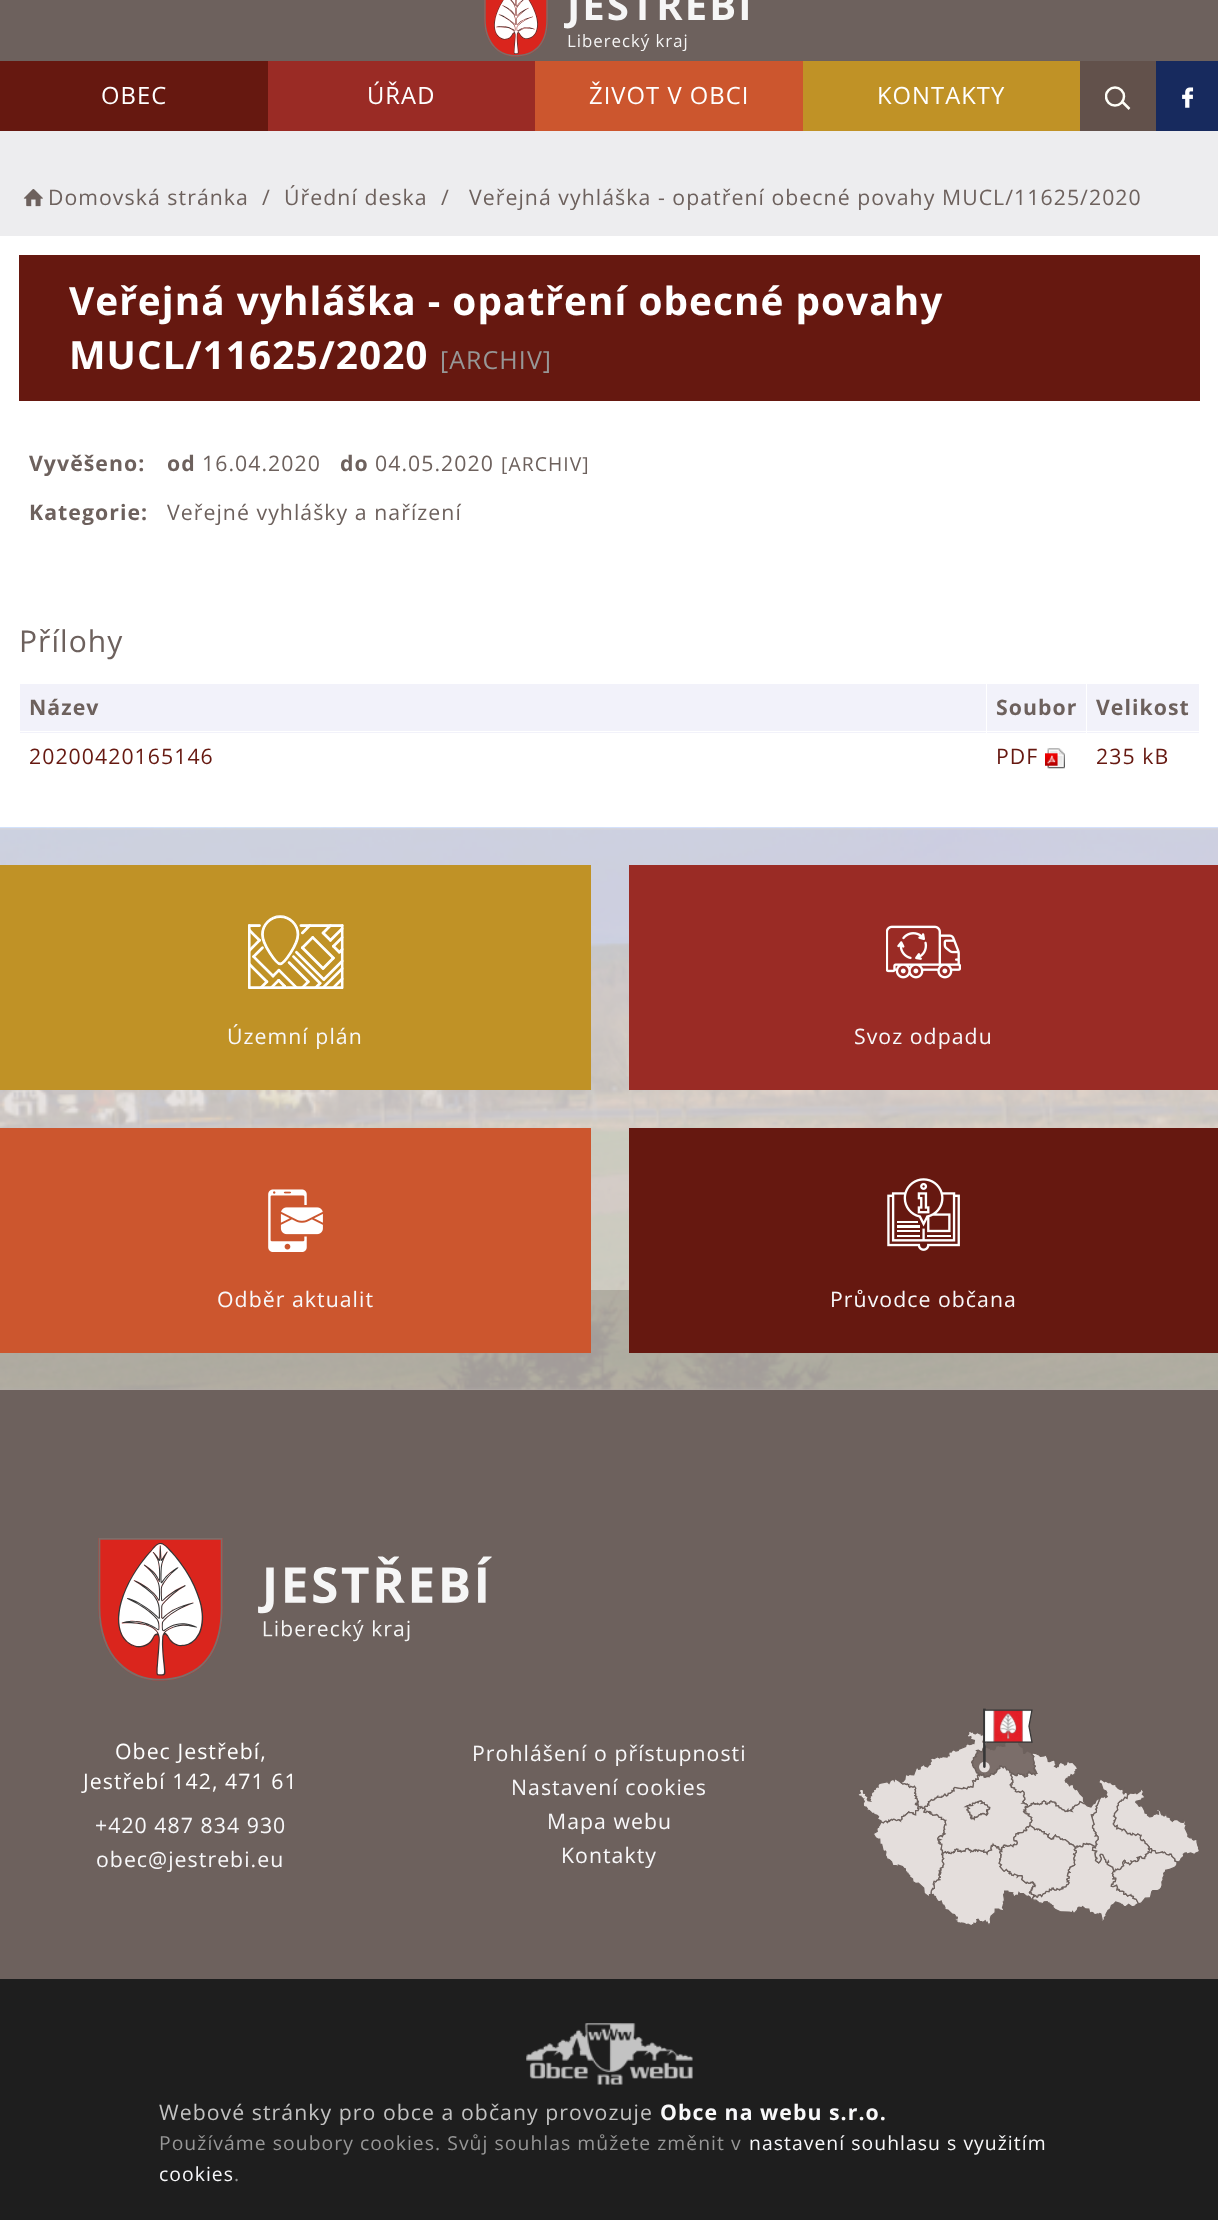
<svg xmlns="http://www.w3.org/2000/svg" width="1218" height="2220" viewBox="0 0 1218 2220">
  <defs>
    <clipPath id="clip1"><rect x="1105" y="85" width="26" height="25"/></clipPath>
  </defs>
  <rect width="100%" height="100%" fill="#e4dedc"/>
  <rect x="0" y="0" width="1218" height="61" fill="#6d615d"/>
  <image x="484" y="0" width="264" height="57" href="img1.png"/>
  <rect x="0" y="61" width="268" height="70" fill="#661810"/>
  <text x="101" y="104" font-family="Open Sans" font-size="23.75" letter-spacing="1.05" fill="#ffffff">OBEC</text>
  <rect x="268" y="61" width="267" height="70" fill="#9a2b25"/>
  <text x="367" y="104" font-family="Open Sans" font-size="23.75" letter-spacing="1.05" fill="#ffffff">ÚŘAD</text>
  <rect x="535" y="61" width="268" height="70" fill="#cc562e"/>
  <text x="589" y="104" font-family="Open Sans" font-size="23.75" letter-spacing="1.05" fill="#ffffff">ŽIVOT V OBCI</text>
  <rect x="803" y="61" width="277" height="70" fill="#c09226"/>
  <text x="877" y="104" font-family="Open Sans" font-size="23.75" letter-spacing="1.05" fill="#ffffff">KONTAKTY</text>
  <rect x="1080" y="61" width="76" height="70" fill="#62514b"/>
  <g clip-path="url(#clip1)">
    <circle cx="1115" cy="96.5" r="9" fill="none" stroke="#fffff8" stroke-width="2.5"/>
  </g>
  <path d="M1122.5 102L1129.5 109" fill="none" stroke="#fffff8" stroke-width="2.5"/>
  <rect x="1156" y="61" width="62" height="70" fill="#172a5e"/>
  <image x="1182" y="87" width="12" height="21" href="img2.png"/>
  <rect x="0" y="131" width="1218" height="105" fill="#ededef"/>
  <image x="23" y="189" width="20" height="18" href="img3.png"/>
  <text x="48" y="205" font-family="Open Sans" font-size="21.25" letter-spacing="1.05" fill="#6d615d">Domovská stránka</text>
  <text x="262" y="205" font-family="Open Sans" font-size="21.25" letter-spacing="1.05" fill="#6d615d">/</text>
  <text x="284" y="205" font-family="Open Sans" font-size="21.25" letter-spacing="1.05" fill="#6d615d">Úřední deska</text>
  <text x="441" y="205" font-family="Open Sans" font-size="21.25" letter-spacing="1.05" fill="#6d615d">/</text>
  <text x="469" y="205" font-family="Open Sans" font-size="21.25" letter-spacing="1.05" fill="#6d615d">Veřejná vyhláška - opatření obecné povahy MUCL/11625/2020</text>
  <rect x="0" y="236" width="1218" height="592" fill="#ffffff"/>
  <rect x="19" y="255" width="1181" height="146" fill="#661810"/>
  <text x="69" y="315" font-family="Open Sans" font-size="38.75" font-weight="bold" letter-spacing="1.05" fill="#ffffff">Veřejná vyhláška - opatření obecné povahy</text>
  <text x="69" y="369" font-family="Open Sans" font-size="38.75" font-weight="bold" letter-spacing="1.05" fill="#ffffff">MUCL/11625/2020</text>
  <text x="440" y="369" font-family="Open Sans" font-size="25" letter-spacing="1.05" fill="#979797">[ARCHIV]</text>
  <text x="29" y="471" font-family="Open Sans" font-size="21.25" font-weight="bold" letter-spacing="1.05" fill="#6d615d">Vyvěšeno:</text>
  <text x="167" y="471" font-family="Open Sans" font-size="21.25" font-weight="bold" letter-spacing="1.05" fill="#6d615d">od</text>
  <text x="202" y="471" font-family="Open Sans" font-size="21.25" letter-spacing="1.05" fill="#6d615d">16.04.2020</text>
  <text x="340" y="471" font-family="Open Sans" font-size="21.25" font-weight="bold" letter-spacing="1.05" fill="#6d615d">do</text>
  <text x="375" y="471" font-family="Open Sans" font-size="21.25" letter-spacing="1.05" fill="#6d615d">04.05.2020</text>
  <text x="501" y="471" font-family="Open Sans" font-size="19.35" letter-spacing="1.05" fill="#6d615d">[ARCHIV]</text>
  <text x="29" y="520" font-family="Open Sans" font-size="21.25" font-weight="bold" letter-spacing="1.05" fill="#6d615d">Kategorie:</text>
  <text x="167" y="520" font-family="Open Sans" font-size="21.25" letter-spacing="1.05" fill="#6d615d">Veřejné vyhlášky a nařízení</text>
  <text x="19" y="652" font-family="Open Sans" font-size="30" letter-spacing="1.05" fill="#6d615d">Přílohy</text>
  <rect x="20" y="684" width="966" height="49" fill="#f2f2fa"/>
  <text x="29" y="715" font-family="Open Sans" font-size="21.25" font-weight="bold" letter-spacing="1.05" fill="#6d615d">Název</text>
  <rect x="987" y="684" width="99" height="49" fill="#f2f2fa"/>
  <text x="996" y="715" font-family="Open Sans" font-size="21.25" font-weight="bold" letter-spacing="1.05" fill="#6d615d">Soubor</text>
  <rect x="1087" y="684" width="112" height="49" fill="#f2f2fa"/>
  <text x="1096" y="715" font-family="Open Sans" font-size="21.25" font-weight="bold" letter-spacing="1.05" fill="#6d615d">Velikost</text>
  <text x="29" y="764" font-family="Open Sans" font-size="21.25" letter-spacing="1.05" fill="#661810">20200420165146</text>
  <text x="996" y="764" font-family="Open Sans" font-size="21.25" letter-spacing="1.05" fill="#661810">PDF</text>
  <image x="1045" y="748" width="20" height="21" href="img4.png"/>
  <rect x="19" y="731" width="1181" height="1" fill="#ffffff"/>
  <text x="1096" y="764" font-family="Open Sans" font-size="21.25" letter-spacing="1.05" fill="#661810">235 kB</text>
  <rect x="0" y="1290" width="1218" height="100" fill="#b4aca9"/>
  <image x="0" y="827" width="1218" height="563" href="img5.png"/>
  <rect x="0" y="865" width="591" height="225" fill="#c09226"/>
  <image x="248" y="915" width="96" height="74" href="img6.png"/>
  <text x="227" y="1044" font-family="Open Sans" font-size="21.25" letter-spacing="1.05" fill="#f8f8fa">Územní plán</text>
  <rect x="629" y="865" width="589" height="225" fill="#9a2b25"/>
  <image x="886" y="925" width="75" height="54" href="img7.png"/>
  <text x="854" y="1044" font-family="Open Sans" font-size="21.25" letter-spacing="1.05" fill="#f8f8fa">Svoz odpadu</text>
  <rect x="0" y="1128" width="591" height="225" fill="#cc562e"/>
  <image x="268" y="1189" width="55" height="63" href="img8.png"/>
  <text x="217" y="1307" font-family="Open Sans" font-size="21.25" letter-spacing="1.05" fill="#f8f8fa">Odběr aktualit</text>
  <rect x="629" y="1128" width="589" height="225" fill="#661810"/>
  <image x="887" y="1178" width="73" height="73" href="img9.png"/>
  <text x="830" y="1307" font-family="Open Sans" font-size="21.25" letter-spacing="1.05" fill="#f8f8fa">Průvodce občana</text>
  <rect x="0" y="1390" width="1218" height="589" fill="#6d615d"/>
  <image x="98" y="1538" width="394" height="143" href="img10.png"/>
  <text x="115" y="1759" font-family="Open Sans" font-size="21.25" letter-spacing="1.05" fill="#ffffff">Obec Jestřebí,</text>
  <text x="83" y="1789" font-family="Open Sans" font-size="21.25" letter-spacing="1.05" fill="#ffffff">Jestřebí 142, 471 61</text>
  <text x="95" y="1833" font-family="Open Sans" font-size="21.25" letter-spacing="1.05" fill="#f8f8fa">+420 487 834 930</text>
  <text x="96" y="1867" font-family="Open Sans" font-size="21.25" letter-spacing="1.05" fill="#f8f8fa">obec@jestrebi.eu</text>
  <text x="472" y="1761" font-family="Open Sans" font-size="21.25" letter-spacing="1.05" fill="#f8f8fa">Prohlášení o přístupnosti</text>
  <text x="511" y="1795" font-family="Open Sans" font-size="21.25" letter-spacing="1.05" fill="#f8f8fa">Nastavení cookies</text>
  <text x="547" y="1829" font-family="Open Sans" font-size="21.25" letter-spacing="1.05" fill="#f8f8fa">Mapa webu</text>
  <text x="561" y="1863" font-family="Open Sans" font-size="21.25" letter-spacing="1.05" fill="#f8f8fa">Kontakty</text>
  <image x="858" y="1708" width="341" height="217" href="img11.png"/>
  <rect x="0" y="1979" width="1218" height="241" fill="#1e1e1e"/>
  <image x="526" y="2023" width="167" height="62" href="img12.png"/>
  <text x="159" y="2120" font-family="Open Sans" font-size="21.25" letter-spacing="1.05" fill="#c2c2c2">Webové stránky pro obce a občany provozuje</text>
  <text x="660" y="2120" font-family="Open Sans" font-size="21.25" font-weight="bold" letter-spacing="1.05" fill="#f8f8fa">Obce na webu s.r.o.</text>
  <text x="159" y="2150" font-family="Open Sans" font-size="19.35" letter-spacing="1.05" fill="#979797">Používáme soubory cookies. Svůj souhlas můžete změnit v</text>
  <text x="749" y="2150" font-family="Open Sans" font-size="19.35" letter-spacing="1.05" fill="#f8f8fa">nastavení souhlasu s využitím</text>
  <text x="159" y="2181" font-family="Open Sans" font-size="19.35" letter-spacing="1.05" fill="#f8f8fa">cookies</text>
  <text x="234" y="2181" font-family="Open Sans" font-size="19.35" letter-spacing="1.05" fill="#979797">.</text>
</svg>
